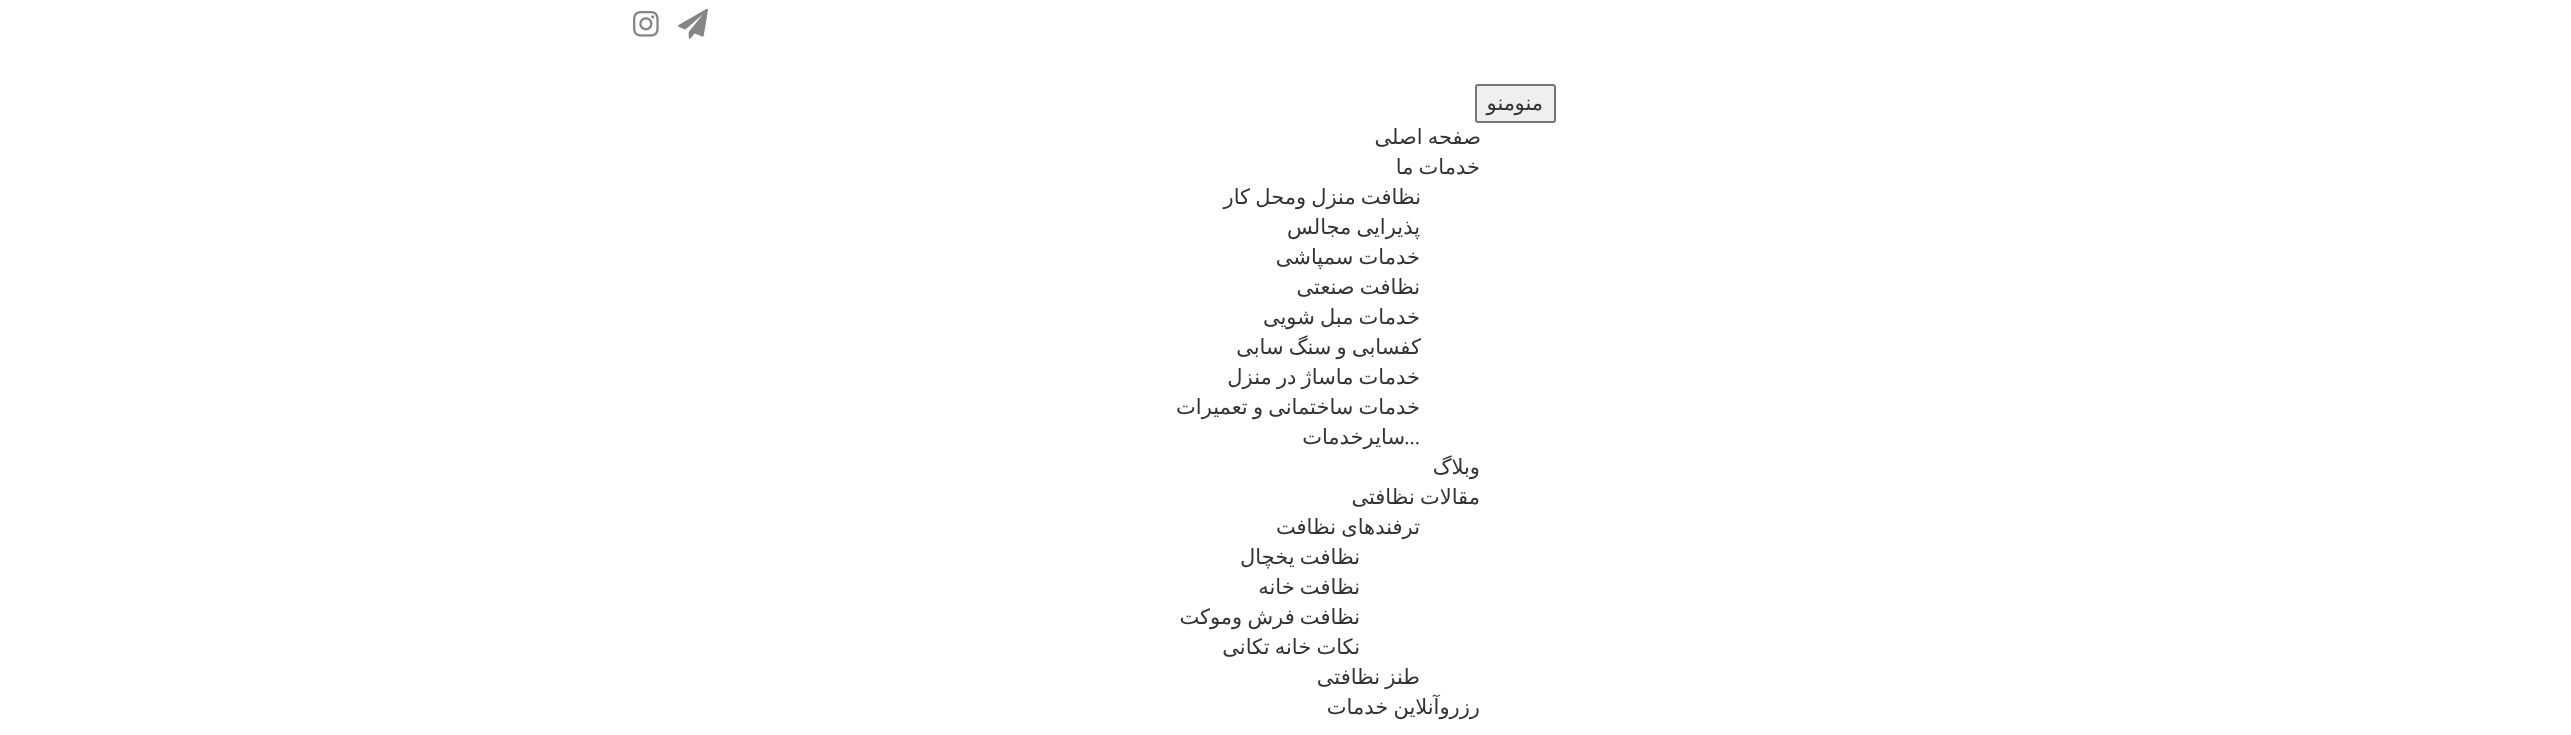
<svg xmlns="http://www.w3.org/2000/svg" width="2571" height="735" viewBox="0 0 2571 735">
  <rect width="100%" height="100%" fill="#ffffff"/>
  <image x="678" y="8" width="30" height="31" href="img1.png"/>
  <image x="633" y="10" width="26" height="27" href="img2.png"/>
  <rect x="1476" y="85" width="79" height="37" rx="2" fill="#efefef" stroke="#767676" stroke-width="2"/>
  <text x="1543" y="110" font-family="DejaVu Sans" font-size="21" direction="rtl" fill="#333333">منو</text>
  <text x="1515" y="110" font-family="DejaVu Sans" font-size="21" direction="rtl" fill="#333333">منو</text>
  <text x="1481" y="144" word-spacing="-1.5" font-family="DejaVu Sans" font-size="21" direction="rtl" fill="#333333">صفحه اصلی</text>
  <text x="1480" y="174" word-spacing="-1.5" font-family="DejaVu Sans" font-size="21" direction="rtl" fill="#333333">خدمات ما</text>
  <text x="1421" y="204" word-spacing="-1.5" font-family="DejaVu Sans" font-size="21" direction="rtl" fill="#333333">نظافت منزل ومحل کار</text>
  <text x="1420" y="234" word-spacing="-1.5" font-family="DejaVu Sans" font-size="21" direction="rtl" fill="#333333">پذیرایی مجالس</text>
  <text x="1420" y="264" word-spacing="-1.5" font-family="DejaVu Sans" font-size="21" direction="rtl" fill="#333333">خدمات سمپاشی</text>
  <text x="1420" y="294" word-spacing="-1.5" font-family="DejaVu Sans" font-size="21" direction="rtl" fill="#333333">نظافت صنعتی</text>
  <text x="1420" y="324" word-spacing="-1.5" font-family="DejaVu Sans" font-size="21" direction="rtl" fill="#333333">خدمات مبل شویی</text>
  <text x="1421" y="354" word-spacing="-1.5" font-family="DejaVu Sans" font-size="21" direction="rtl" fill="#333333">کفسابی و سنگ سابی</text>
  <text x="1420" y="384" word-spacing="-1.5" font-family="DejaVu Sans" font-size="21" direction="rtl" fill="#333333">خدمات ماساژ در منزل</text>
  <text x="1420" y="414" word-spacing="-1.5" font-family="DejaVu Sans" font-size="21" direction="rtl" fill="#333333">خدمات ساختمانی و تعمیرات</text>
  <text x="1420" y="444" font-family="Liberation Serif" font-size="21" direction="rtl" fill="#333333">...</text>
  <text x="1405" y="444" font-family="DejaVu Sans" font-size="21" direction="rtl" fill="#333333">سایرخدمات</text>
  <text x="1480" y="474" font-family="DejaVu Sans" font-size="21" direction="rtl" fill="#333333">وبلاگ</text>
  <text x="1480" y="504" word-spacing="-1.5" font-family="DejaVu Sans" font-size="21" direction="rtl" fill="#333333">مقالات نظافتی</text>
  <text x="1420" y="534" word-spacing="-1.5" font-family="DejaVu Sans" font-size="21" direction="rtl" fill="#333333">ترفندهای نظافت</text>
  <text x="1360" y="564" word-spacing="-1.5" font-family="DejaVu Sans" font-size="21" direction="rtl" fill="#333333">نظافت یخچال</text>
  <text x="1360" y="594" word-spacing="-1.5" font-family="DejaVu Sans" font-size="21" direction="rtl" fill="#333333">نظافت خانه</text>
  <text x="1360" y="624" word-spacing="-1.5" font-family="DejaVu Sans" font-size="21" direction="rtl" fill="#333333">نظافت فرش وموکت</text>
  <text x="1360" y="654" word-spacing="-1.5" font-family="DejaVu Sans" font-size="21" direction="rtl" fill="#333333">نکات خانه تکانی</text>
  <text x="1420" y="684" word-spacing="-1.5" font-family="DejaVu Sans" font-size="21" direction="rtl" fill="#333333">طنز نظافتی</text>
  <text x="1480" y="714" word-spacing="-1.5" font-family="DejaVu Sans" font-size="21" direction="rtl" fill="#333333">رزروآنلاین خدمات</text>
</svg>
